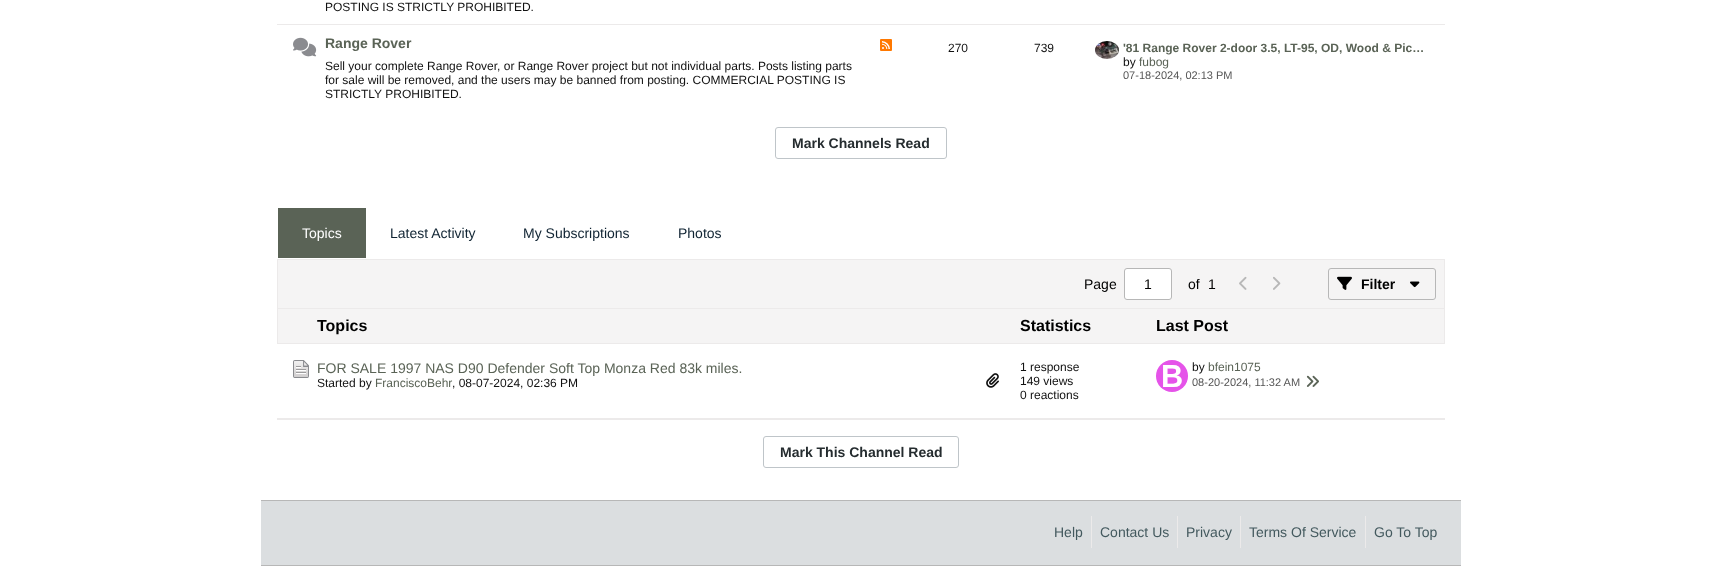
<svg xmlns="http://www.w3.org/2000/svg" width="1722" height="587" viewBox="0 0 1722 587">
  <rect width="100%" height="100%" fill="#ffffff"/>
  <text x="325" y="11" font-family="Liberation Sans" font-size="12" fill="#111111">POSTING IS STRICTLY PROHIBITED.</text>
  <rect x="277" y="24" width="1168" height="1" fill="#eceaea"/>
  <image x="293" y="37" width="24" height="20" href="img1.png"/>
  <text x="325" y="48" font-family="Liberation Sans" font-size="14" font-weight="bold" fill="#5a6356">Range Rover</text>
  <text x="325" y="70" font-family="Liberation Sans" font-size="12" fill="#111111">Sell your complete Range Rover, or Range Rover project but not individual parts. Posts listing parts</text>
  <text x="325" y="84" font-family="Liberation Sans" font-size="12" fill="#111111">for sale will be removed, and the users may be banned from posting. COMMERCIAL POSTING IS</text>
  <text x="325" y="98" font-family="Liberation Sans" font-size="12" fill="#111111">STRICTLY PROHIBITED.</text>
  <image x="880" y="39" width="12" height="12" href="img2.png"/>
  <text x="948" y="52" font-family="Liberation Sans" font-size="12" fill="#111111">270</text>
  <text x="1034" y="52" font-family="Liberation Sans" font-size="12" fill="#111111">739</text>
  <image x="1095" y="41" width="24" height="18" href="img3.png"/>
  <text x="1123" y="52" font-family="Liberation Sans" font-size="12" font-weight="bold" fill="#5a6356">'81 Range Rover 2-door 3.5, LT-95, OD, Wood &amp; Pic…</text>
  <text x="1123" y="66" font-family="Liberation Sans" font-size="12" fill="#111111">by</text>
  <text x="1139" y="66" font-family="Liberation Sans" font-size="12" fill="#5a6356">fubog</text>
  <text x="1123" y="79" font-family="Liberation Sans" font-size="11" fill="#555555">07-18-2024, 02:13 PM</text>
  <rect x="775.5" y="127.5" width="171" height="31" rx="2.5" fill="none" stroke="#bfc5c9"/>
  <text x="792" y="148" font-family="Liberation Sans" font-size="14" font-weight="bold" fill="#252c2f">Mark Channels Read</text>
  <rect x="278" y="208" width="88" height="50" fill="#5a6356"/>
  <text x="302" y="238" font-family="Liberation Sans" font-size="14" fill="#ffffff">Topics</text>
  <text x="390" y="238" font-family="Liberation Sans" font-size="14" fill="#0f2332">Latest Activity</text>
  <text x="523" y="238" font-family="Liberation Sans" font-size="14" fill="#0f2332">My Subscriptions</text>
  <text x="678" y="238" font-family="Liberation Sans" font-size="14" fill="#0f2332">Photos</text>
  <rect x="277.5" y="259.5" width="1167" height="49" fill="#f5f4f4" stroke="#eceaea"/>
  <text x="1084" y="289" font-family="Liberation Sans" font-size="14" fill="#000000">Page</text>
  <rect x="1124.5" y="268.5" width="47" height="31" rx="2.5" fill="#ffffff" stroke="#b7b7b7"/>
  <text x="1144" y="289" font-family="Liberation Sans" font-size="14" fill="#000000">1</text>
  <text x="1188" y="289" font-family="Liberation Sans" font-size="14" fill="#000000">of</text>
  <text x="1208" y="289" font-family="Liberation Sans" font-size="14" fill="#000000">1</text>
  <image x="1239" y="276" width="8" height="14" href="img4.png"/>
  <image x="1273" y="276" width="8" height="14" href="img5.png"/>
  <rect x="1328.5" y="268.5" width="107" height="31" rx="2.5" fill="none" stroke="#b7b7b7"/>
  <image x="1337" y="276" width="15" height="14" href="img6.png"/>
  <text x="1361" y="289" font-family="Liberation Sans" font-size="14" font-weight="bold" fill="#000000">Filter</text>
  <image x="1410" y="281" width="10" height="7" href="img7.png"/>
  <rect x="277" y="419" width="1168" height="1" fill="#eceaea"/>
  <rect x="278" y="309" width="1166" height="34" fill="#f5f4f4"/>
  <rect x="277" y="309" width="1" height="34" fill="#eceaea"/>
  <text x="317" y="331" font-family="Liberation Sans" font-size="16" font-weight="bold" fill="#000000">Topics</text>
  <text x="1020" y="331" font-family="Liberation Sans" font-size="16" font-weight="bold" fill="#000000">Statistics</text>
  <rect x="1444" y="309" width="1" height="34" fill="#eceaea"/>
  <text x="1156" y="331" font-family="Liberation Sans" font-size="16" font-weight="bold" fill="#000000">Last Post</text>
  <rect x="277" y="343" width="40" height="1" fill="#eceaea"/>
  <rect x="277" y="418" width="40" height="1" fill="#eceaea"/>
  <image x="293" y="360" width="16" height="18" href="img8.png"/>
  <rect x="317" y="343" width="1128" height="1" fill="#eceaea"/>
  <rect x="317" y="418" width="1128" height="1" fill="#eceaea"/>
  <image x="986" y="373" width="13" height="15" href="img9.png"/>
  <text x="317" y="373" font-family="Liberation Sans" font-size="14" fill="#5a6356">FOR SALE 1997 NAS D90 Defender Soft Top Monza Red 83k miles.</text>
  <text x="317" y="387" font-family="Liberation Sans" font-size="12" fill="#111111">Started by</text>
  <text x="375" y="387" font-family="Liberation Sans" font-size="12" fill="#5a6356">FranciscoBehr</text>
  <text x="452" y="387" font-family="Liberation Sans" font-size="12" fill="#111111">, 08-07-2024, 02:36 PM</text>
  <text x="1020" y="371" font-family="Liberation Sans" font-size="12" fill="#111111">1 response</text>
  <text x="1020" y="385" font-family="Liberation Sans" font-size="12" fill="#111111">149 views</text>
  <text x="1020" y="399" font-family="Liberation Sans" font-size="12" fill="#111111">0 reactions</text>
  <image x="1156" y="360" width="32" height="32" href="img10.png"/>
  <text x="1192" y="371" font-family="Liberation Sans" font-size="12" fill="#111111">by</text>
  <text x="1208" y="371" font-family="Liberation Sans" font-size="12" fill="#5a6356">bfein1075</text>
  <text x="1192" y="386" font-family="Liberation Sans" font-size="11" fill="#555555">08-20-2024, 11:32 AM</text>
  <image x="1306" y="375" width="13" height="12" href="img11.png"/>
  <rect x="763.5" y="436.5" width="195" height="31" rx="2.5" fill="none" stroke="#bfc5c9"/>
  <text x="780" y="457" font-family="Liberation Sans" font-size="14" font-weight="bold" fill="#252c2f">Mark This Channel Read</text>
  <rect x="261" y="501" width="1200" height="64" fill="#dbdee0"/>
  <rect x="261" y="500" width="1200" height="1" fill="#b7b7b7"/>
  <rect x="261" y="565" width="1200" height="1" fill="#b7b7b7"/>
  <text x="1054" y="537" font-family="Liberation Sans" font-size="14" fill="#43595e">Help</text>
  <rect x="1091" y="516" width="1" height="32" fill="#eceaea"/>
  <text x="1100" y="537" font-family="Liberation Sans" font-size="14" fill="#43595e">Contact Us</text>
  <rect x="1177" y="516" width="1" height="32" fill="#eceaea"/>
  <text x="1186" y="537" font-family="Liberation Sans" font-size="14" fill="#43595e">Privacy</text>
  <rect x="1240" y="516" width="1" height="32" fill="#eceaea"/>
  <text x="1249" y="537" font-family="Liberation Sans" font-size="14" fill="#43595e">Terms Of Service</text>
  <rect x="1365" y="516" width="1" height="32" fill="#eceaea"/>
  <text x="1374" y="537" font-family="Liberation Sans" font-size="14" fill="#43595e">Go To Top</text>
</svg>
